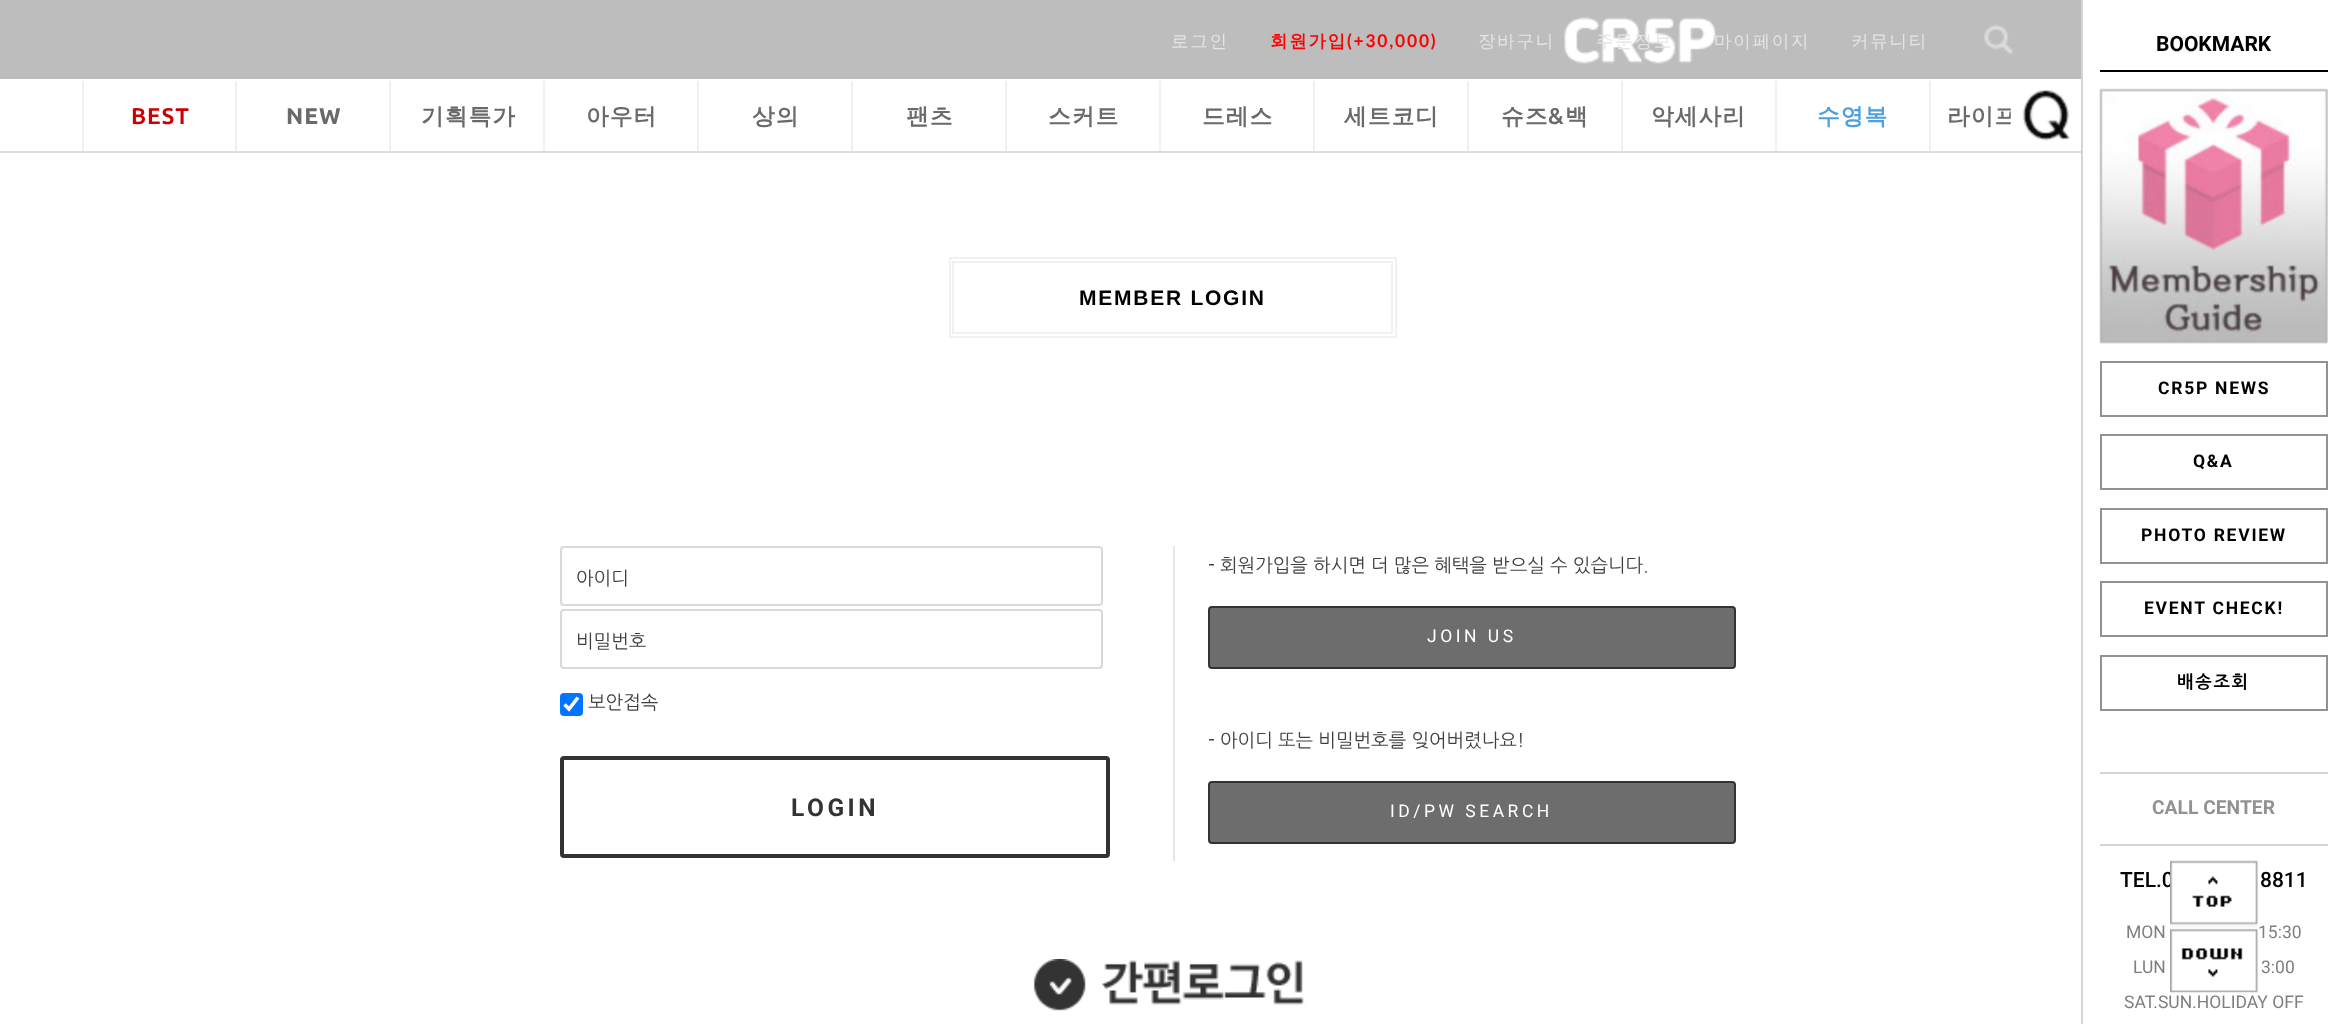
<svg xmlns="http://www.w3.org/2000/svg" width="2345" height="1024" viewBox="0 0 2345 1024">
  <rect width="100%" height="100%" fill="#ffffff"/>
  <rect x="0" y="0" width="2081" height="79" fill="#bdbdbd"/>
  <image x="1564" y="17" width="152" height="47" href="img1.png"/>
  <text x="1171" y="47" font-family="WenQuanYi Zen Hei" font-size="17.5" font-weight="500" letter-spacing="1.75" fill="#e5e5e5">로그인</text>
  <text x="1270" y="47" font-family="WenQuanYi Zen Hei" font-size="17.5" font-weight="bold" letter-spacing="1.75" fill="#ff0000">회원가입</text>
  <text x="1347" y="47" font-family="Lato" font-size="17.5" font-weight="bold" letter-spacing="1.75" fill="#ff0000">(+30,000)</text>
  <text x="1478" y="47" font-family="WenQuanYi Zen Hei" font-size="17.5" font-weight="500" letter-spacing="1.75" fill="#e5e5e5">장바구니</text>
  <text x="1596" y="47" font-family="WenQuanYi Zen Hei" font-size="17.5" font-weight="500" letter-spacing="1.75" fill="#e5e5e5">주문정보</text>
  <text x="1714" y="47" font-family="WenQuanYi Zen Hei" font-size="17.5" font-weight="500" letter-spacing="1.75" fill="#e5e5e5">마이페이지</text>
  <text x="1851" y="47" font-family="WenQuanYi Zen Hei" font-size="17.5" font-weight="500" letter-spacing="1.75" fill="#e5e5e5">커뮤니티</text>
  <image x="1984" y="24" width="29" height="31" href="img2.png"/>
  <rect x="0" y="151" width="2081" height="2" fill="#dddddd"/>
  <rect x="82" y="81" width="2" height="70" fill="#f0f0f0"/>
  <text x="131" y="124" font-family="Ubuntu" font-size="22.75" font-weight="bold" letter-spacing="1" fill="#cb0000">BEST</text>
  <rect x="235" y="81" width="2" height="70" fill="#f0f0f0"/>
  <text x="286" y="124" font-family="Ubuntu" font-size="22.75" font-weight="800" letter-spacing="1" fill="#6a6a6a">NEW</text>
  <rect x="389" y="81" width="2" height="70" fill="#f0f0f0"/>
  <text x="421" y="124" font-family="WenQuanYi Zen Hei" font-size="22.75" font-weight="bold" letter-spacing="1" fill="#6a6a6a">기획특가</text>
  <rect x="543" y="81" width="2" height="70" fill="#f0f0f0"/>
  <text x="586" y="124" font-family="WenQuanYi Zen Hei" font-size="22.75" font-weight="bold" letter-spacing="1" fill="#6a6a6a">아우터</text>
  <rect x="697" y="81" width="2" height="70" fill="#f0f0f0"/>
  <text x="752" y="124" font-family="WenQuanYi Zen Hei" font-size="22.75" font-weight="bold" letter-spacing="1" fill="#6a6a6a">상의</text>
  <rect x="851" y="81" width="2" height="70" fill="#f0f0f0"/>
  <text x="906" y="124" font-family="WenQuanYi Zen Hei" font-size="22.75" font-weight="bold" letter-spacing="1" fill="#6a6a6a">팬츠</text>
  <rect x="1005" y="81" width="2" height="70" fill="#f0f0f0"/>
  <text x="1048" y="124" font-family="WenQuanYi Zen Hei" font-size="22.75" font-weight="bold" letter-spacing="1" fill="#6a6a6a">스커트</text>
  <rect x="1159" y="81" width="2" height="70" fill="#f0f0f0"/>
  <text x="1202" y="124" font-family="WenQuanYi Zen Hei" font-size="22.75" font-weight="bold" letter-spacing="1" fill="#6a6a6a">드레스</text>
  <rect x="1313" y="81" width="2" height="70" fill="#f0f0f0"/>
  <text x="1344" y="124" font-family="WenQuanYi Zen Hei" font-size="22.75" font-weight="bold" letter-spacing="1" fill="#6a6a6a">세트코디</text>
  <rect x="1467" y="81" width="2" height="70" fill="#f0f0f0"/>
  <text x="1501" y="124" font-family="WenQuanYi Zen Hei" font-size="22.75" font-weight="bold" letter-spacing="1" fill="#6a6a6a">슈즈</text>
  <text x="1548" y="124" font-family="Ubuntu" font-size="22.75" font-weight="bold" letter-spacing="1" fill="#6a6a6a">&amp;</text>
  <text x="1565" y="124" font-family="WenQuanYi Zen Hei" font-size="22.75" font-weight="bold" letter-spacing="1" fill="#6a6a6a">백</text>
  <rect x="1621" y="81" width="2" height="70" fill="#f0f0f0"/>
  <text x="1651" y="124" font-family="WenQuanYi Zen Hei" font-size="22.75" font-weight="bold" letter-spacing="1" fill="#6a6a6a">악세사리</text>
  <rect x="1775" y="81" width="2" height="70" fill="#f0f0f0"/>
  <text x="1817" y="124" font-family="WenQuanYi Zen Hei" font-size="22.75" font-weight="bold" letter-spacing="1" fill="#4aa0e2">수영복</text>
  <rect x="1929" y="81" width="2" height="70" fill="#f0f0f0"/>
  <text x="1947" y="124" font-family="WenQuanYi Zen Hei" font-size="22.75" font-weight="bold" letter-spacing="1" fill="#6a6a6a">라이프</text>
  <rect x="950" y="258" width="446" height="79" fill="none" stroke="#f1f1f1" stroke-width="2"/>
  <rect x="953" y="262" width="439" height="71" fill="none" stroke="#f1f1f1" stroke-width="2"/>
  <text x="1079" y="305" font-family="Liberation Sans" font-size="21" font-weight="bold" letter-spacing="1.75" fill="#000000">MEMBER LOGIN</text>
  <rect x="1173" y="546" width="2" height="315" fill="#e5e5e5"/>
  <rect x="561" y="547" width="541" height="58" rx="3" fill="none" stroke="#d9d9d9" stroke-width="2"/>
  <text x="576" y="585" font-family="NanumGothic" font-size="18.7" fill="#3f3f3f">아이디</text>
  <rect x="561" y="610" width="541" height="58" rx="3" fill="none" stroke="#d9d9d9" stroke-width="2"/>
  <text x="576" y="648" font-family="NanumGothic" font-size="18.7" fill="#3f3f3f">비밀번호</text>
  <rect x="560" y="693" width="23" height="23" rx="4" fill="#0075ff"/>
  <path d="M564.5 704.5L569 709L578 697.5" fill="none" stroke="#ffffff" stroke-width="3.6"/>
  <text x="588" y="709" font-family="NanumGothic" font-size="18.7" fill="#3f3f3f">보안접속</text>
  <rect x="562" y="758" width="546" height="98" rx="2" fill="none" stroke="#333333" stroke-width="4"/>
  <text x="791" y="816" font-family="Roboto" font-size="24.5" font-weight="bold" letter-spacing="3.5" fill="#333333">LOGIN</text>
  <text x="1208" y="572" font-family="NanumGothic" font-size="18.7" fill="#3f3f3f">- 회원가입을 하시면 더 많은 혜택을 받으실 수 있습니다.</text>
  <rect x="1209" y="607" width="526" height="61" rx="3" fill="#6d6d6d" stroke="#333333" stroke-width="2"/>
  <text x="1427" y="642" font-family="Roboto" font-size="17.5" letter-spacing="3.5" fill="#ffffff">JOIN US</text>
  <text x="1208" y="747" font-family="NanumGothic" font-size="18.7" fill="#3f3f3f">- 아이디 또는 비밀번호를 잊어버렸나요!</text>
  <rect x="1209" y="782" width="526" height="61" rx="3" fill="#6d6d6d" stroke="#333333" stroke-width="2"/>
  <text x="1390" y="817" font-family="Roboto" font-size="17.5" letter-spacing="3.5" fill="#ffffff">ID/PW SEARCH</text>
  <image x="1033" y="959" width="272" height="52" href="img3.png"/>
  <text x="2120" y="887" font-family="Roboto" font-size="21" font-weight="500" fill="#000000">TEL.0</text>
  <image x="2170" y="860" width="88" height="68" href="img4.png"/>
  <image x="2170" y="928" width="88" height="65" href="img5.png"/>
  <rect x="2081" y="0" width="2" height="1024" fill="#d5d5d5"/>
  <image x="2010" y="90" width="60" height="51" href="img6.png"/>
  <rect x="2100" y="70" width="228" height="2" fill="#000000"/>
  <text x="2156" y="51" font-family="Roboto" font-size="21" font-weight="bold" fill="#000000">BOOKMARK</text>
  <image x="2099" y="88" width="229" height="256" href="img7.png"/>
  <rect x="2101" y="362" width="226" height="54" fill="none" stroke="#929292" stroke-width="2"/>
  <text x="2158" y="394" font-family="Roboto" font-size="17.5" font-weight="bold" letter-spacing="1.75" fill="#000000">CR5P NEWS</text>
  <rect x="2101" y="435" width="226" height="54" fill="none" stroke="#929292" stroke-width="2"/>
  <text x="2193" y="467" font-family="Roboto" font-size="17.5" font-weight="bold" letter-spacing="1.75" fill="#000000">Q&amp;A</text>
  <rect x="2101" y="509" width="226" height="54" fill="none" stroke="#929292" stroke-width="2"/>
  <text x="2141" y="541" font-family="Roboto" font-size="17.5" font-weight="bold" letter-spacing="1.75" fill="#000000">PHOTO REVIEW</text>
  <rect x="2101" y="582" width="226" height="54" fill="none" stroke="#929292" stroke-width="2"/>
  <text x="2144" y="614" font-family="Roboto" font-size="17.5" font-weight="bold" letter-spacing="1.75" fill="#000000">EVENT CHECK!</text>
  <rect x="2101" y="656" width="226" height="54" fill="none" stroke="#929292" stroke-width="2"/>
  <text x="2177" y="688" font-family="NanumGothic" font-size="17.5" font-weight="bold" letter-spacing="1.75" fill="#000000">배송조회</text>
  <rect x="2100" y="772" width="228" height="2" fill="#d5d5d5"/>
  <rect x="2100" y="844" width="228" height="2" fill="#d5d5d5"/>
  <text x="2152" y="814" font-family="Roboto" font-size="19.25" font-weight="bold" fill="#929292">CALL CENTER</text>
  <text x="2260" y="887" font-family="Roboto" font-size="21" font-weight="500" fill="#000000">8811</text>
  <text x="2126" y="938" font-family="Roboto" font-size="17.5" fill="#7f7f7f">MON</text>
  <text x="2258" y="938" font-family="Roboto" font-size="17.5" fill="#7f7f7f">15:30</text>
  <text x="2133" y="973" font-family="Roboto" font-size="17.5" fill="#7f7f7f">LUN</text>
  <text x="2261" y="973" font-family="Roboto" font-size="17.5" fill="#7f7f7f">3:00</text>
  <text x="2124" y="1008" font-family="Roboto" font-size="17.5" fill="#7f7f7f">SAT.SUN.HOLIDAY OFF</text>
</svg>
